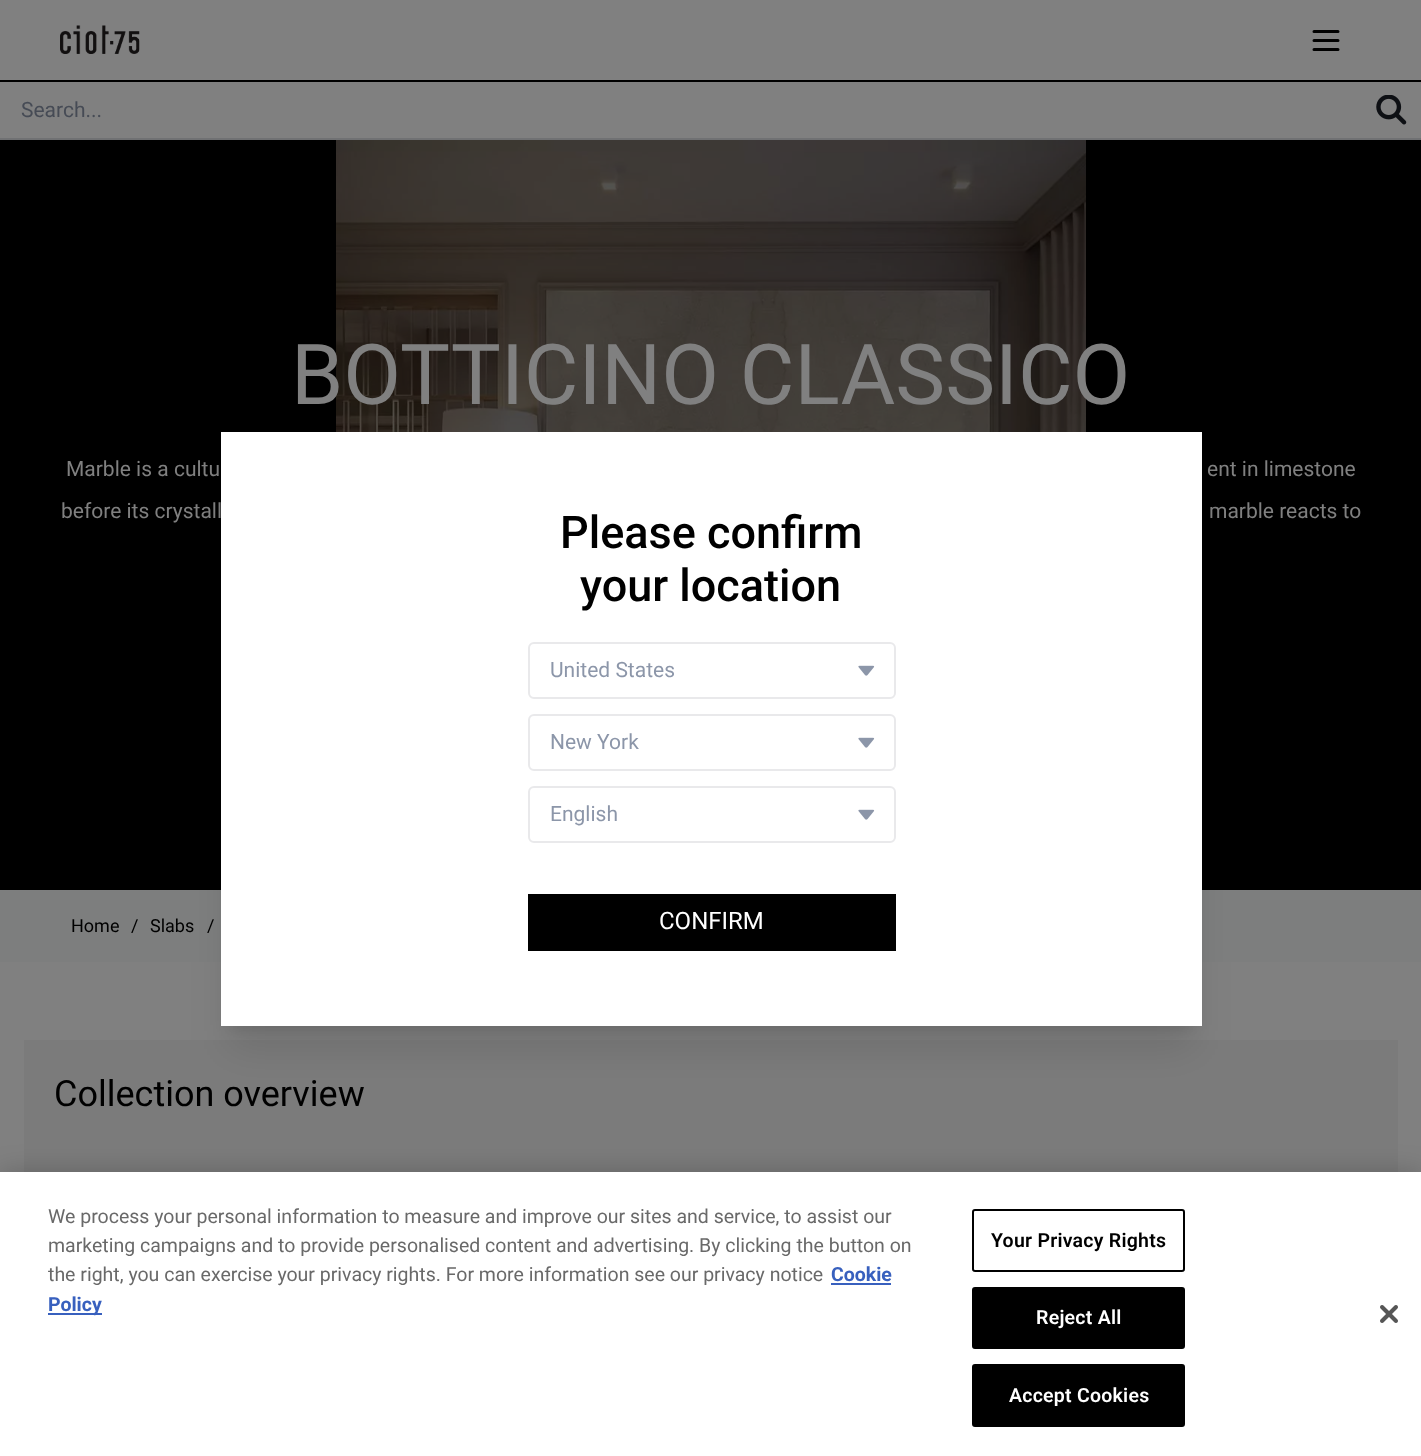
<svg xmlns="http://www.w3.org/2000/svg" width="1421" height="1456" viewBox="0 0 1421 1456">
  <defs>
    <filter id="blur1" x="-50%" y="-200%" width="200%" height="500%"><feGaussianBlur stdDeviation="7.5"/></filter>
    <filter id="blur2" x="-50%" y="-200%" width="200%" height="500%"><feGaussianBlur stdDeviation="19"/></filter>
    <filter id="blur3" x="-50%" y="-200%" width="200%" height="500%"><feGaussianBlur stdDeviation="13.5"/></filter>
  </defs>
  <rect width="100%" height="100%" fill="#808080"/>
  <image x="60" y="25" width="80" height="29" href="img1.png"/>
  <path d="M1314 31.5H1338M1314 40.5H1338M1314 49.5H1338" fill="none" stroke="#000000" stroke-width="3" stroke-linecap="round" stroke-linejoin="round"/>
  <rect x="0" y="80" width="1421" height="2" fill="#000000"/>
  <rect x="0" y="138" width="1421" height="2" fill="#707173"/>
  <text x="21" y="117" font-family="Roboto" font-size="21" fill="#464b55">Search...</text>
  <image x="1376" y="95" width="31" height="30" href="img2.png"/>
  <rect x="0" y="140" width="1421" height="750" fill="#000000"/>
  <image x="336" y="140" width="750" height="292" href="img3.png"/>
  <text x="291" y="404" font-family="Roboto" font-size="84" fill="#808080">BOTTICINO CLASSICO</text>
  <text x="66" y="476" font-family="Roboto" font-size="21" fill="#808080">Marble is a cultu</text>
  <text x="1207" y="476" font-family="Roboto" font-size="21" fill="#808080">ent in limestone</text>
  <text x="61" y="518" font-family="Roboto" font-size="21" fill="#808080">before its crystall</text>
  <text x="1209" y="518" font-family="Roboto" font-size="21" fill="#808080">marble reacts to</text>
  <rect x="0" y="890" width="1421" height="72" fill="#7d7e7e"/>
  <text x="71" y="932" font-family="Roboto" font-size="18" fill="#000000">Home</text>
  <text x="131" y="932" font-family="Roboto" font-size="18" fill="#000000">/</text>
  <text x="150" y="932" font-family="Roboto" font-size="18" fill="#000000">Slabs</text>
  <text x="207" y="932" font-family="Roboto" font-size="18" fill="#000000">/</text>
  <rect x="24" y="1040" width="1374" height="132" fill="#7b7b7b"/>
  <text x="54" y="1106" font-family="Roboto" font-size="36" fill="#000000">Collection overview</text>
  <rect x="230" y="453" width="963" height="576" fill="#000000" fill-opacity="0.1" filter="url(#blur1)"/>
  <rect x="228" y="470" width="966" height="579" fill="#000000" fill-opacity="0.1" filter="url(#blur2)"/>
  <rect x="221" y="432" width="981" height="594" fill="#ffffff"/>
  <text x="560" y="548" font-family="Roboto" font-size="45" font-weight="500" fill="#000000">Please confirm</text>
  <text x="580" y="601" font-family="Roboto" font-size="45" font-weight="500" fill="#000000">your location</text>
  <image x="858" y="665" width="17" height="11" href="img4.png"/>
  <rect x="529" y="643" width="366" height="55" rx="5" fill="none" stroke="#e9e9eb" stroke-width="2"/>
  <text x="550" y="677" font-family="Roboto" font-size="21" fill="#8c96a9">United States</text>
  <image x="858" y="737" width="17" height="11" href="img4.png"/>
  <rect x="529" y="715" width="366" height="55" rx="5" fill="none" stroke="#e9e9eb" stroke-width="2"/>
  <text x="550" y="749" font-family="Roboto" font-size="21" fill="#8c96a9">New York</text>
  <image x="858" y="809" width="17" height="11" href="img4.png"/>
  <rect x="529" y="787" width="366" height="55" rx="5" fill="none" stroke="#e9e9eb" stroke-width="2"/>
  <text x="550" y="821" font-family="Roboto" font-size="21" fill="#8c96a9">English</text>
  <rect x="528" y="894" width="368" height="57" fill="#000000"/>
  <text x="659" y="929" font-family="Roboto" font-size="24" fill="#ffffff">CONFIRM</text>
  <rect x="0" y="1172" width="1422" height="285" fill="#000000" fill-opacity="0.2" filter="url(#blur3)"/>
  <rect x="0" y="1172" width="1421" height="284" fill="#ffffff"/>
  <text x="48" y="1223" font-family="Roboto" font-size="19.5" fill="#696969">We process your personal information to measure and improve our sites and service, to assist our</text>
  <text x="48" y="1252" font-family="Roboto" font-size="19.5" fill="#696969">marketing campaigns and to provide personalised content and advertising. By clicking the button on</text>
  <text x="48" y="1281" font-family="Roboto" font-size="19.5" fill="#696969">the right, you can exercise your privacy rights. For more information see our privacy notice</text>
  <text x="831" y="1281" font-family="Roboto" font-size="19.5" font-weight="bold" fill="#3860be">Cookie</text>
  <rect x="831" y="1283" width="60" height="2" fill="#3860be"/>
  <rect x="48" y="1313" width="54" height="2" fill="#3860be"/>
  <text x="48" y="1311" font-family="Roboto" font-size="19.5" font-weight="bold" fill="#3860be">Policy</text>
  <rect x="973" y="1210" width="211" height="61" rx="2" fill="none" stroke="#000000" stroke-width="2"/>
  <text x="991" y="1247" font-family="Roboto" font-size="19.5" font-weight="600" letter-spacing="0.25" fill="#000000">Your Privacy Rights</text>
  <rect x="973" y="1288" width="211" height="60" rx="2" fill="#000000" stroke="#000000" stroke-width="2"/>
  <text x="1036" y="1324" font-family="Roboto" font-size="19.5" font-weight="600" letter-spacing="0.25" fill="#ffffff">Reject All</text>
  <rect x="973" y="1365" width="211" height="61" rx="2" fill="#000000" stroke="#000000" stroke-width="2"/>
  <text x="1009" y="1402" font-family="Roboto" font-size="19.5" font-weight="600" letter-spacing="0.25" fill="#ffffff">Accept Cookies</text>
  <image x="1380" y="1305" width="18" height="18" href="img5.png"/>
</svg>
